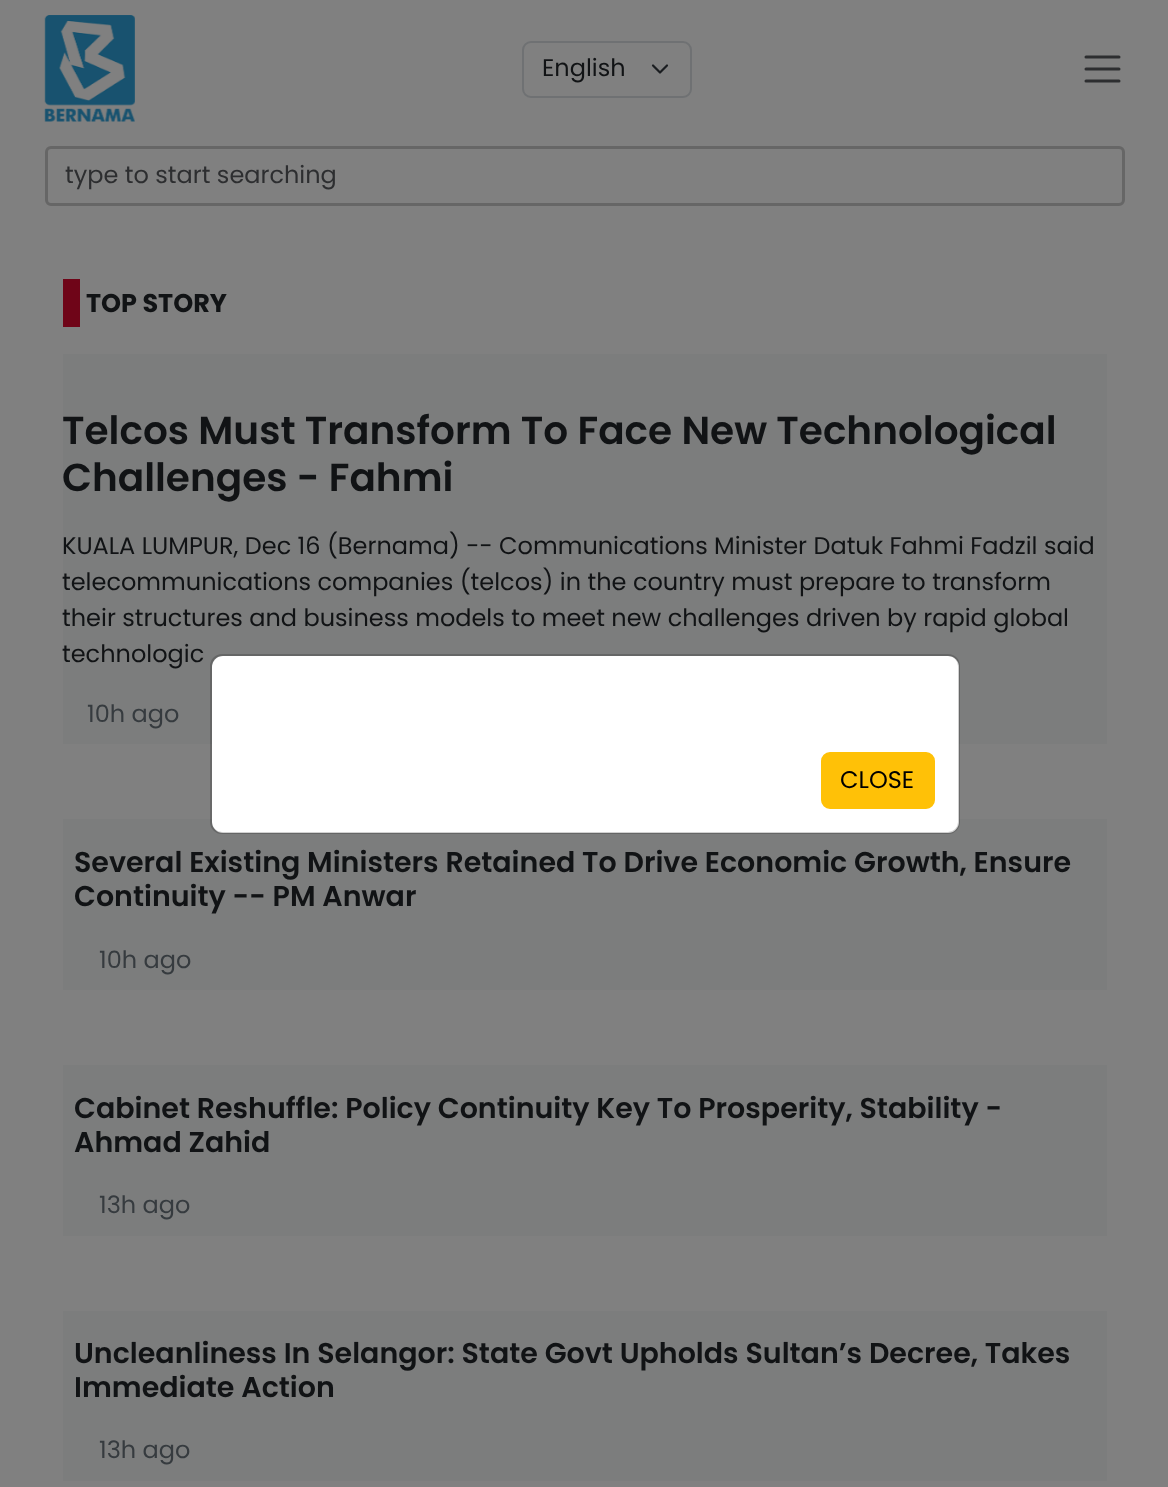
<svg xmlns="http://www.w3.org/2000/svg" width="1168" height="1487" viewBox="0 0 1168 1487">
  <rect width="100%" height="100%" fill="#808080"/>
  <image x="44" y="15" width="91" height="107" href="img1.png"/>
  <path d="M653 65.5L660 72.5L667 65.5" fill="none" stroke="#1a1d20" stroke-width="2.2" stroke-linecap="round" stroke-linejoin="round"/>
  <rect x="523" y="42" width="168" height="55" rx="8" fill="none" stroke="#6f7173" stroke-width="2"/>
  <text x="542" y="76" font-family="Poppins" font-size="24" fill="#111315">English</text>
  <path d="M1086 57H1119M1086 69H1119M1086 81H1119" fill="none" stroke="#2d2e30" stroke-width="3" stroke-linecap="round"/>
  <rect x="46.5" y="147.5" width="1077" height="57" rx="4.5" fill="none" stroke="#666666" stroke-width="3"/>
  <text x="65" y="183" font-family="Poppins" font-size="24" fill="#2d2e30">type to start searching</text>
  <rect x="63" y="279" width="17" height="48" fill="#6f0518"/>
  <text x="86" y="312" font-family="Poppins" font-size="25.5" font-weight="bold" fill="#111315">TOP STORY</text>
  <rect x="63" y="354" width="1044" height="390" fill="#7c7d7d"/>
  <text x="62" y="444" font-family="Poppins" font-size="39" font-weight="600" fill="#111315">Telcos Must Transform To Face New Technological</text>
  <text x="62" y="491" font-family="Poppins" font-size="39" font-weight="600" fill="#111315">Challenges - Fahmi</text>
  <text x="62" y="554" font-family="Poppins" font-size="24" fill="#111315">KUALA LUMPUR, Dec 16 (Bernama) -- Communications Minister Datuk Fahmi Fadzil said</text>
  <text x="62" y="590" font-family="Poppins" font-size="24" fill="#111315">telecommunications companies (telcos) in the country must prepare to transform</text>
  <text x="62" y="626" font-family="Poppins" font-size="24" fill="#111315">their structures and business models to meet new challenges driven by rapid global</text>
  <text x="62" y="662" font-family="Poppins" font-size="24" fill="#111315">technologic</text>
  <text x="87" y="722" font-family="Poppins" font-size="24" fill="#363b3f">10h ago</text>
  <rect x="63" y="819" width="1044" height="171" fill="#7c7d7d"/>
  <text x="74" y="872" font-family="Poppins" font-size="28.5" font-weight="600" fill="#111315">Several Existing Ministers Retained To Drive Economic Growth, Ensure</text>
  <text x="74" y="906" font-family="Poppins" font-size="28.5" font-weight="600" fill="#111315">Continuity -- PM Anwar</text>
  <text x="99" y="968" font-family="Poppins" font-size="24" fill="#363b3f">10h ago</text>
  <rect x="63" y="1065" width="1044" height="171" fill="#7c7d7d"/>
  <text x="74" y="1118" font-family="Poppins" font-size="28.5" font-weight="600" fill="#111315">Cabinet Reshuffle: Policy Continuity Key To Prosperity, Stability -</text>
  <text x="74" y="1152" font-family="Poppins" font-size="28.5" font-weight="600" fill="#111315">Ahmad Zahid</text>
  <text x="99" y="1213" font-family="Poppins" font-size="24" fill="#363b3f">13h ago</text>
  <rect x="63" y="1311" width="1044" height="170" fill="#7c7d7d"/>
  <text x="74" y="1363" font-family="Poppins" font-size="28.5" font-weight="600" fill="#111315">Uncleanliness In Selangor: State Govt Upholds Sultan’s Decree, Takes</text>
  <text x="74" y="1397" font-family="Poppins" font-size="28.5" font-weight="600" fill="#111315">Immediate Action</text>
  <text x="99" y="1458" font-family="Poppins" font-size="24" fill="#363b3f">13h ago</text>
  <rect x="212" y="656" width="747" height="177" rx="11" fill="#ffffff"/>
  <rect x="211" y="655" width="748" height="178" rx="11" fill="none" stroke="#000000" stroke-opacity="0.18" stroke-width="2"/>
  <rect x="822" y="753" width="112" height="55" rx="8" fill="#ffc107" stroke="#ffc107" stroke-width="2"/>
  <text x="840" y="788" font-family="Poppins" font-size="24" fill="#000000">CLOSE</text>
</svg>
